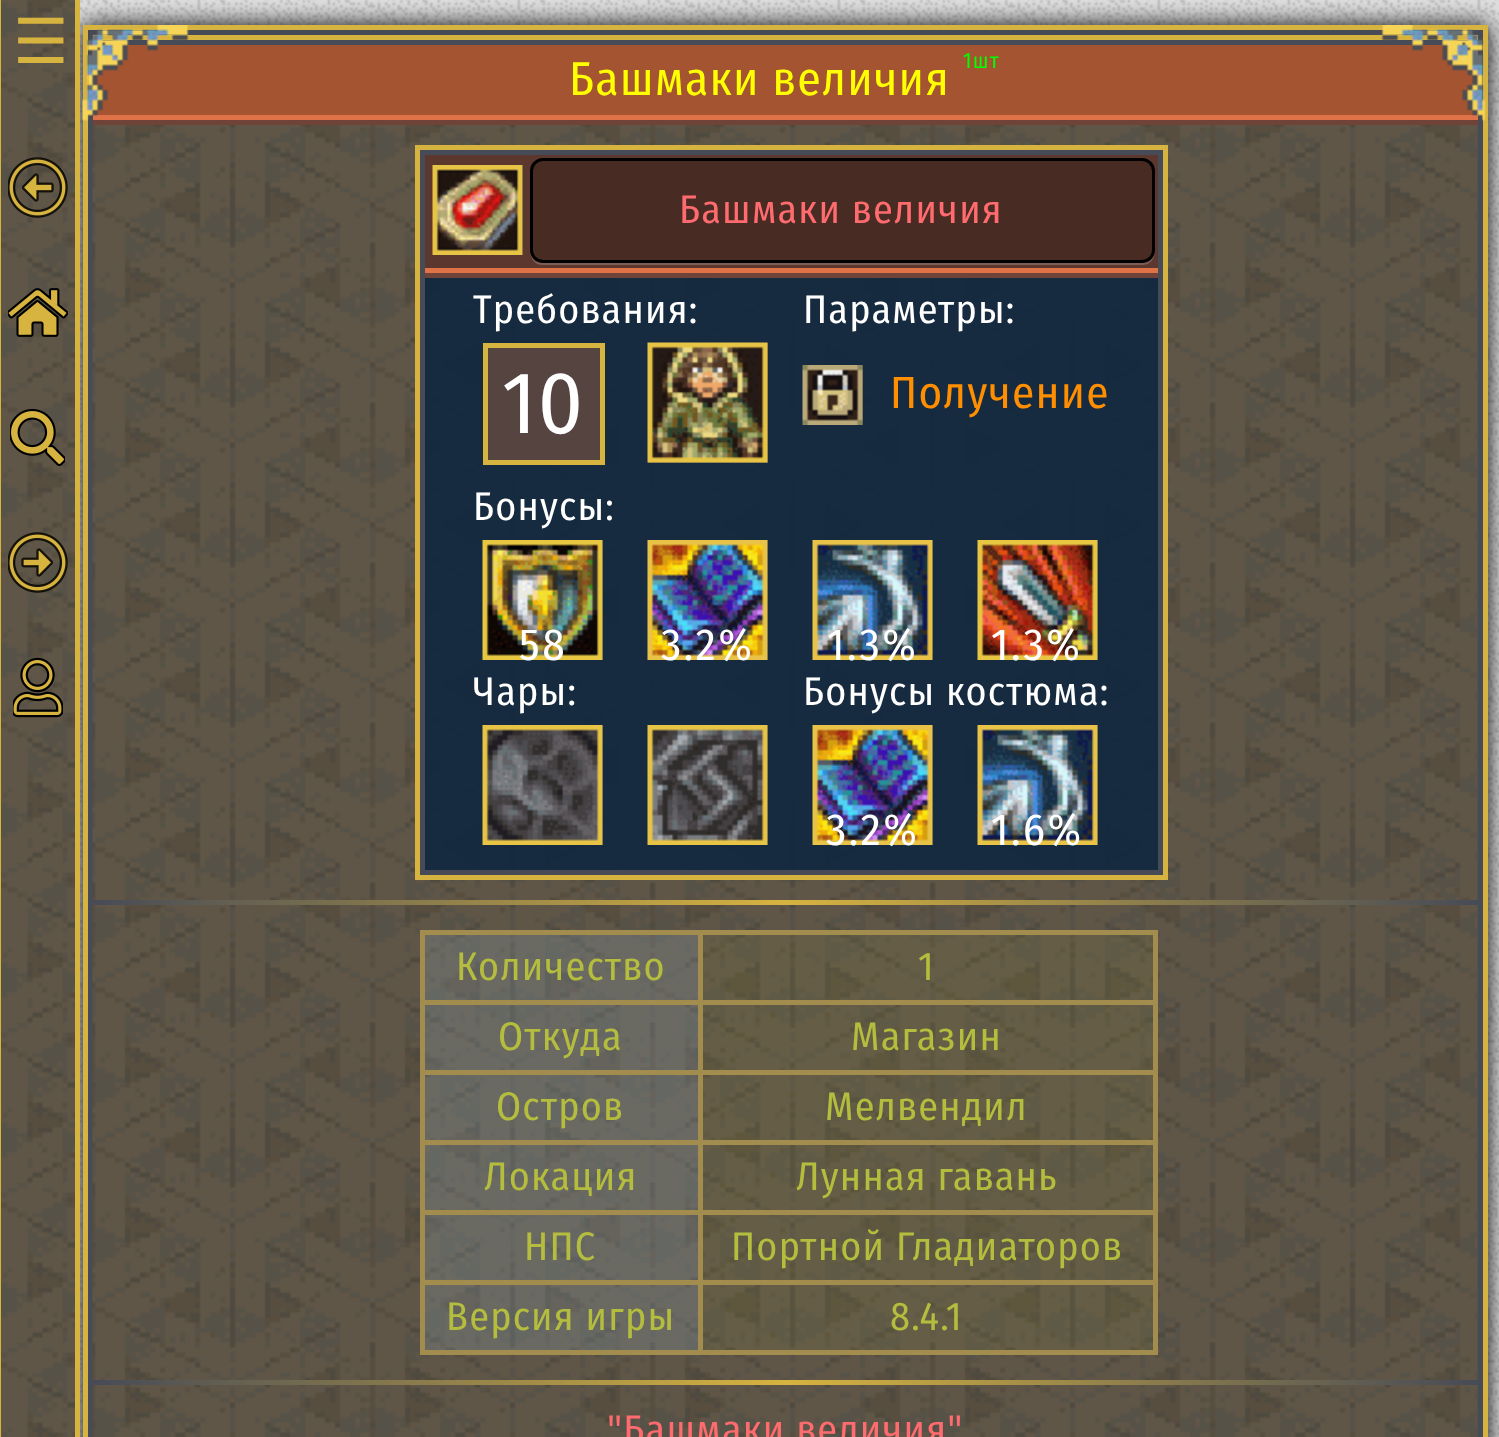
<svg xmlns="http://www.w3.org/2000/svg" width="1499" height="1437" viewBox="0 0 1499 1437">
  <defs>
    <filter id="blur1" x="-50%" y="-200%" width="200%" height="500%"><feGaussianBlur stdDeviation="12.5"/></filter>
    <linearGradient id="g1" gradientUnits="userSpaceOnUse" x1="93" y1="903" x2="1478" y2="903"><stop offset="0" stop-color="#474b57"/><stop offset="0.5" stop-color="#d7b33f"/><stop offset="1" stop-color="#474b57"/></linearGradient>
    <linearGradient id="g2" gradientUnits="userSpaceOnUse" x1="93" y1="1383" x2="1478" y2="1383"><stop offset="0" stop-color="#474b57"/><stop offset="0.5" stop-color="#d7b33f"/><stop offset="1" stop-color="#474b57"/></linearGradient>
  </defs>
  <rect width="100%" height="100%" fill="#ffffff"/>
  <image x="80" y="0" width="1419" height="1437" href="img1.png"/>
  <rect x="83" y="25" width="1405" height="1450" fill="#000000" filter="url(#blur1)"/>
  <image x="1" y="0" width="74" height="1437" href="img2.png"/>
  <rect x="75" y="0" width="5" height="1437" fill="#d7b33f"/>
  <rect x="0" y="0" width="1" height="1437" fill="#d7b33f"/>
  <image x="8" y="157" width="60" height="61" href="img3.png"/>
  <image x="8" y="288" width="60" height="49" href="img4.png"/>
  <image x="10" y="408" width="55" height="58" href="img5.png"/>
  <image x="8" y="532" width="60" height="61" href="img6.png"/>
  <image x="13" y="657" width="50" height="61" href="img7.png"/>
  <text x="13" y="63" font-family="DejaVu Sans" font-size="62" letter-spacing="1.25" fill="#d7b33f">☰</text>
  <rect x="85.5" y="27.5" width="1400" height="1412" fill="none" stroke="#d7b33f" stroke-width="5"/>
  <rect x="90.5" y="32.5" width="1390" height="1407" fill="none" stroke="#474b57" stroke-width="5"/>
  <rect x="93" y="35" width="1385" height="5" fill="#d7b33f"/>
  <rect x="93" y="120" width="1385" height="5" fill="#6f4337"/>
  <rect x="93" y="40" width="1385" height="5" fill="#474b57"/>
  <rect x="93" y="115" width="1385" height="5" fill="#df7347"/>
  <rect x="92" y="45" width="1386" height="70" fill="#a45430"/>
  <image x="82" y="25" width="107" height="96" href="img8.png"/>
  <text x="963" y="68" font-family="Fira Sans Condensed" font-size="22" letter-spacing="1.25" fill="#00ff00">1шт</text>
  <text x="569" y="95" font-family="Fira Sans Condensed" font-size="47.5" letter-spacing="1.25" fill="#ffff00">Башмаки величия</text>
  <image x="1381" y="25" width="105" height="96" href="img9.png"/>
  <rect x="1477" y="125" width="1" height="1312" fill="#575247"/>
  <image x="92" y="125" width="1385" height="1312" href="img10.png"/>
  <rect x="425" y="278" width="733" height="592" fill="#0f273f" fill-opacity="0.9"/>
  <rect x="422.5" y="152.5" width="738" height="720" fill="none" stroke="#474b57" stroke-width="5"/>
  <rect x="425" y="273" width="733" height="5" fill="#6f4337"/>
  <rect x="425" y="268" width="733" height="5" fill="#df7347"/>
  <rect x="425" y="155" width="733" height="113" fill="#5c372d"/>
  <rect x="522" y="165" width="1" height="90" fill="#2c3e4e"/>
  <image x="432" y="165" width="91" height="90" href="img11.png"/>
  <rect x="485.5" y="345.5" width="117" height="117" fill="#55443f" stroke="#d7b33f" stroke-width="5"/>
  <rect x="648" y="343" width="120" height="120" fill="#575247"/>
  <image x="647" y="342" width="121" height="121" href="img12.png"/>
  <rect x="862" y="365" width="1" height="60" fill="#575247"/>
  <image x="802" y="365" width="61" height="60" href="img13.png"/>
  <rect x="602" y="540" width="1" height="120" fill="#2c3e4e"/>
  <image x="482" y="540" width="121" height="120" href="img14.png"/>
  <rect x="767" y="540" width="1" height="120" fill="#2c3e4e"/>
  <image x="647" y="540" width="121" height="120" href="img15.png"/>
  <rect x="932" y="540" width="1" height="120" fill="#2c3e4e"/>
  <image x="812" y="540" width="121" height="120" href="img16.png"/>
  <rect x="1097" y="540" width="1" height="120" fill="#2c3e4e"/>
  <image x="977" y="540" width="121" height="120" href="img17.png"/>
  <rect x="602" y="725" width="1" height="120" fill="#2c3e4e"/>
  <image x="482" y="725" width="121" height="120" href="img18.png"/>
  <rect x="767" y="725" width="1" height="120" fill="#2c3e4e"/>
  <image x="647" y="725" width="121" height="120" href="img19.png"/>
  <rect x="932" y="725" width="1" height="120" fill="#2c3e4e"/>
  <image x="812" y="725" width="121" height="120" href="img20.png"/>
  <rect x="1097" y="725" width="1" height="120" fill="#2c3e4e"/>
  <image x="977" y="725" width="121" height="120" href="img21.png"/>
  <rect x="417.5" y="147.5" width="748" height="730" fill="none" stroke="#d7b33f" stroke-width="5"/>
  <path d="M530 250C530 258 534 265 543 265H1142C1151 265 1155 258 1155 250C1155 257 1149 262 1142 262H542C536 262 530 257 530 250Z" fill="#7c5e56"/>
  <rect x="531.5" y="159.5" width="622" height="102" rx="11.5" fill="#020202" fill-opacity="0.21" stroke="#000000" stroke-width="3"/>
  <text x="679" y="223" font-family="Fira Sans Condensed" font-size="40" letter-spacing="1.25" fill="#ff6b6f">Башмаки величия</text>
  <text x="473" y="323" font-family="Fira Sans Condensed" font-size="40" letter-spacing="1.25" fill="#ffffff">Требования:</text>
  <text x="803" y="323" font-family="Fira Sans Condensed" font-size="40" letter-spacing="1.25" fill="#ffffff">Параметры:</text>
  <text x="502" y="433" font-family="Fira Sans Condensed" font-size="88" letter-spacing="1.25" fill="#ffffff">10</text>
  <text x="890" y="408" font-family="Fira Sans Condensed" font-size="45" letter-spacing="1.25" fill="#ff8f00">Получение</text>
  <text x="473" y="520" font-family="Fira Sans Condensed" font-size="40" letter-spacing="1.25" fill="#ffffff">Бонусы:</text>
  <text x="519" y="660" font-family="Fira Sans Condensed" font-size="45" letter-spacing="2.5" fill="#ffffff">58</text>
  <text x="661" y="660" font-family="Fira Sans Condensed" font-size="45" letter-spacing="2.5" fill="#ffffff">3.2%</text>
  <text x="827" y="660" font-family="Fira Sans Condensed" font-size="45" letter-spacing="2.5" fill="#ffffff">1.3%</text>
  <text x="991" y="660" font-family="Fira Sans Condensed" font-size="45" letter-spacing="2.5" fill="#ffffff">1.3%</text>
  <text x="473" y="705" font-family="Fira Sans Condensed" font-size="40" letter-spacing="1.25" fill="#ffffff">Чары:</text>
  <text x="803" y="705" font-family="Fira Sans Condensed" font-size="40" letter-spacing="1.25" fill="#ffffff">Бонусы костюма:</text>
  <text x="826" y="845" font-family="Fira Sans Condensed" font-size="45" letter-spacing="2.5" fill="#ffffff">3.2%</text>
  <text x="991" y="845" font-family="Fira Sans Condensed" font-size="45" letter-spacing="2.5" fill="#ffffff">1.6%</text>
  <rect x="93" y="900" width="1385" height="5" fill="url(#g1)"/>
  <image x="92" y="905" width="1385" height="475" href="img22.png"/>
  <rect x="425" y="935" width="273" height="65" fill="#a9cadd" fill-opacity="0.18"/>
  <rect x="698" y="930" width="460" height="5" fill="#a28d4f"/>
  <rect x="698" y="1000" width="460" height="5" fill="#a28d4f"/>
  <rect x="698" y="1070" width="460" height="5" fill="#a28d4f"/>
  <rect x="698" y="1140" width="460" height="5" fill="#a28d4f"/>
  <rect x="698" y="1210" width="460" height="5" fill="#a28d4f"/>
  <rect x="698" y="1280" width="460" height="5" fill="#a28d4f"/>
  <rect x="1153" y="1280" width="5" height="75" fill="#a28d4f"/>
  <rect x="698" y="1350" width="460" height="5" fill="#a28d4f"/>
  <rect x="698" y="1280" width="5" height="75" fill="#a28d4f"/>
  <rect x="420" y="1280" width="283" height="5" fill="#a28d4f"/>
  <rect x="698" y="1210" width="5" height="75" fill="#a28d4f"/>
  <rect x="420" y="1210" width="283" height="5" fill="#a28d4f"/>
  <rect x="698" y="1140" width="5" height="75" fill="#a28d4f"/>
  <rect x="420" y="1140" width="283" height="5" fill="#a28d4f"/>
  <rect x="698" y="1070" width="5" height="75" fill="#a28d4f"/>
  <rect x="420" y="1070" width="283" height="5" fill="#a28d4f"/>
  <rect x="698" y="1000" width="5" height="75" fill="#a28d4f"/>
  <rect x="420" y="1000" width="283" height="5" fill="#a28d4f"/>
  <rect x="698" y="930" width="5" height="75" fill="#a28d4f"/>
  <rect x="420" y="930" width="283" height="5" fill="#a28d4f"/>
  <rect x="420" y="1350" width="283" height="5" fill="#a28d4f"/>
  <rect x="420" y="1280" width="5" height="75" fill="#a28d4f"/>
  <rect x="420" y="1210" width="5" height="75" fill="#a28d4f"/>
  <rect x="420" y="1140" width="5" height="75" fill="#a28d4f"/>
  <rect x="420" y="1070" width="5" height="75" fill="#a28d4f"/>
  <rect x="420" y="1000" width="5" height="75" fill="#a28d4f"/>
  <rect x="420" y="930" width="5" height="75" fill="#a28d4f"/>
  <text x="456" y="980" font-family="Fira Sans Condensed" font-size="40" letter-spacing="1.25" fill="#b4bd3d">Количество</text>
  <rect x="703" y="935" width="450" height="65" fill="#867e3c" fill-opacity="0.18"/>
  <rect x="1153" y="1210" width="5" height="75" fill="#a28d4f"/>
  <rect x="1153" y="1140" width="5" height="75" fill="#a28d4f"/>
  <rect x="1153" y="1070" width="5" height="75" fill="#a28d4f"/>
  <rect x="1153" y="1000" width="5" height="75" fill="#a28d4f"/>
  <rect x="1153" y="930" width="5" height="75" fill="#a28d4f"/>
  <text x="918" y="980" font-family="Fira Sans Condensed" font-size="40" letter-spacing="1.25" fill="#b4bd3d">1</text>
  <rect x="425" y="1005" width="273" height="65" fill="#a9cadd" fill-opacity="0.18"/>
  <text x="498" y="1050" font-family="Fira Sans Condensed" font-size="40" letter-spacing="1.25" fill="#b4bd3d">Откуда</text>
  <rect x="703" y="1005" width="450" height="65" fill="#867e3c" fill-opacity="0.18"/>
  <text x="851" y="1050" font-family="Fira Sans Condensed" font-size="40" letter-spacing="1.25" fill="#b4bd3d">Магазин</text>
  <rect x="425" y="1075" width="273" height="65" fill="#a9cadd" fill-opacity="0.18"/>
  <text x="496" y="1120" font-family="Fira Sans Condensed" font-size="40" letter-spacing="1.25" fill="#b4bd3d">Остров</text>
  <rect x="703" y="1075" width="450" height="65" fill="#867e3c" fill-opacity="0.18"/>
  <text x="825" y="1120" font-family="Fira Sans Condensed" font-size="40" letter-spacing="1.25" fill="#b4bd3d">Мелвендил</text>
  <rect x="425" y="1145" width="273" height="65" fill="#a9cadd" fill-opacity="0.18"/>
  <text x="484" y="1190" font-family="Fira Sans Condensed" font-size="40" letter-spacing="1.25" fill="#b4bd3d">Локация</text>
  <rect x="703" y="1145" width="450" height="65" fill="#867e3c" fill-opacity="0.18"/>
  <text x="796" y="1190" font-family="Fira Sans Condensed" font-size="40" letter-spacing="1.25" fill="#b4bd3d">Лунная гавань</text>
  <rect x="425" y="1215" width="273" height="65" fill="#a9cadd" fill-opacity="0.18"/>
  <text x="524" y="1260" font-family="Fira Sans Condensed" font-size="40" letter-spacing="1.25" fill="#b4bd3d">НПС</text>
  <rect x="703" y="1215" width="450" height="65" fill="#867e3c" fill-opacity="0.18"/>
  <text x="731" y="1260" font-family="Fira Sans Condensed" font-size="40" letter-spacing="1.25" fill="#b4bd3d">Портной Гладиаторов</text>
  <rect x="425" y="1285" width="273" height="65" fill="#a9cadd" fill-opacity="0.18"/>
  <text x="446" y="1330" font-family="Fira Sans Condensed" font-size="40" letter-spacing="1.25" fill="#b4bd3d">Версия игры</text>
  <rect x="703" y="1285" width="450" height="65" fill="#867e3c" fill-opacity="0.18"/>
  <text x="890" y="1330" font-family="Fira Sans Condensed" font-size="40" letter-spacing="1.25" fill="#b4bd3d">8.4.1</text>
  <rect x="93" y="1380" width="1385" height="5" fill="url(#g2)"/>
  <text x="607" y="1443" font-family="Fira Sans Condensed" font-size="40" letter-spacing="1.25" fill="#ff6b6f">"Башмаки величия"</text>
</svg>
